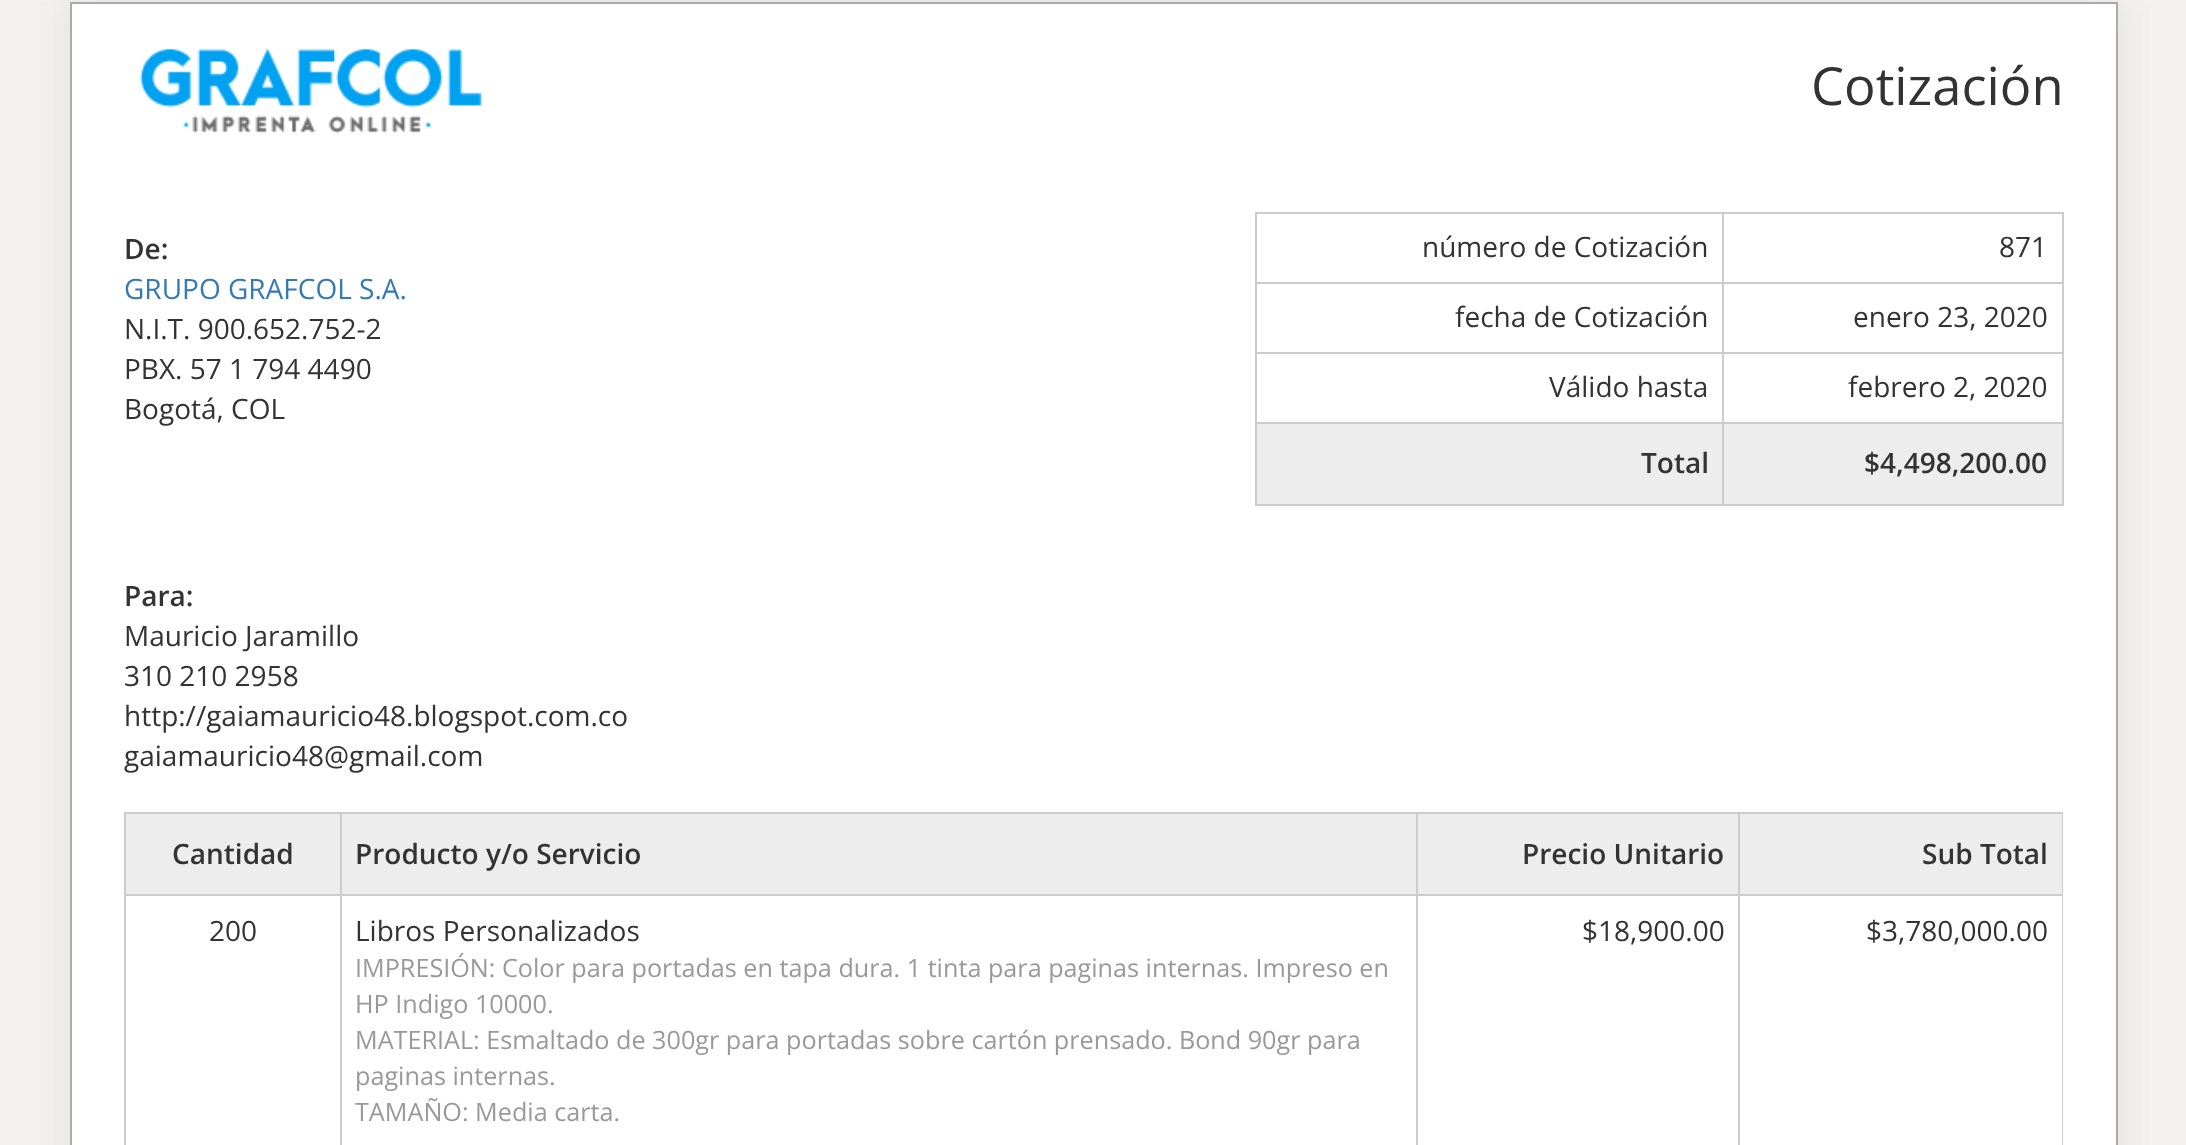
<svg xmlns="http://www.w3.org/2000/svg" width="2186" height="1145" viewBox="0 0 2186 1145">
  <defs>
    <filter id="blur1" x="-50%" y="-200%" width="200%" height="500%"><feGaussianBlur stdDeviation="17.5"/></filter>
  </defs>
  <rect width="100%" height="100%" fill="#f2f1ef"/>
  <rect x="70" y="2" width="2048" height="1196" fill="#000000" fill-opacity="0.07" filter="url(#blur1)"/>
  <rect x="71" y="3" width="2046" height="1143" fill="#ffffff" stroke="#aaaaaa" stroke-width="2"/>
  <image x="139" y="47" width="343" height="87" href="img1.png"/>
  <text x="1811" y="105" font-family="Open Sans" font-size="52.5" fill="#333333">Cotización</text>
  <text x="124" y="259" font-family="Open Sans" font-size="28" font-weight="600" fill="#333333">De:</text>
  <text x="124" y="299" font-family="Open Sans" font-size="28" fill="#337ab7">GRUPO GRAFCOL S.A.</text>
  <text x="124" y="339" font-family="Open Sans" font-size="28" fill="#333333">N.I.T. 900.652.752-2</text>
  <text x="124" y="379" font-family="Open Sans" font-size="28" fill="#333333">PBX. 57 1 794 4490</text>
  <text x="124" y="419" font-family="Open Sans" font-size="28" fill="#333333">Bogotá, COL</text>
  <rect x="1255" y="212" width="808" height="2" fill="#cccccc"/>
  <rect x="2062" y="212" width="2" height="294" fill="#cccccc"/>
  <rect x="1255" y="504" width="808" height="2" fill="#cccccc"/>
  <rect x="1255" y="212" width="2" height="294" fill="#cccccc"/>
  <text x="1422" y="257" font-family="Open Sans" font-size="28" fill="#333333">número de Cotización</text>
  <rect x="1722" y="282" width="341" height="2" fill="#cccccc"/>
  <rect x="1722" y="352" width="341" height="2" fill="#cccccc"/>
  <rect x="1722" y="422" width="341" height="2" fill="#cccccc"/>
  <rect x="1722" y="422" width="2" height="84" fill="#cccccc"/>
  <rect x="1255" y="422" width="469" height="2" fill="#cccccc"/>
  <rect x="1722" y="352" width="2" height="72" fill="#cccccc"/>
  <rect x="1255" y="352" width="469" height="2" fill="#cccccc"/>
  <rect x="1722" y="282" width="2" height="72" fill="#cccccc"/>
  <rect x="1255" y="282" width="469" height="2" fill="#cccccc"/>
  <rect x="1722" y="212" width="2" height="72" fill="#cccccc"/>
  <text x="1999" y="257" font-family="Open Sans" font-size="28" fill="#333333">871</text>
  <text x="1455" y="327" font-family="Open Sans" font-size="28" fill="#333333">fecha de Cotización</text>
  <text x="1853" y="327" font-family="Open Sans" font-size="28" fill="#333333">enero 23, 2020</text>
  <text x="1549" y="397" font-family="Open Sans" font-size="28" fill="#333333">Válido hasta</text>
  <text x="1848" y="397" font-family="Open Sans" font-size="28" fill="#333333">febrero 2, 2020</text>
  <rect x="1257" y="424" width="465" height="80" fill="#ededed"/>
  <text x="1641" y="473" font-family="Open Sans" font-size="28" font-weight="600" fill="#333333">Total</text>
  <rect x="1724" y="424" width="338" height="80" fill="#ededed"/>
  <text x="1864" y="473" font-family="Open Sans" font-size="28" font-weight="600" fill="#333333">$4,498,200.00</text>
  <text x="124" y="606" font-family="Open Sans" font-size="28" font-weight="600" fill="#333333">Para:</text>
  <text x="124" y="646" font-family="Open Sans" font-size="28" fill="#333333">Mauricio Jaramillo</text>
  <text x="124" y="686" font-family="Open Sans" font-size="28" fill="#333333">310 210 2958</text>
  <text x="124" y="726" font-family="Open Sans" font-size="28" fill="#333333">http://gaiamauricio48.blogspot.com.co</text>
  <text x="124" y="766" font-family="Open Sans" font-size="28" fill="#333333">gaiamauricio48@gmail.com</text>
  <rect x="124" y="812" width="1939" height="2" fill="#cccccc"/>
  <rect x="2062" y="812" width="1" height="333" fill="#cccccc"/>
  <rect x="124" y="812" width="2" height="333" fill="#cccccc"/>
  <rect x="126" y="814" width="214" height="80" fill="#ededed"/>
  <text x="172" y="864" font-family="Open Sans" font-size="28" font-weight="600" fill="#333333">Cantidad</text>
  <rect x="342" y="814" width="1074" height="80" fill="#ededed"/>
  <rect x="1738" y="894" width="325" height="2" fill="#cccccc"/>
  <rect x="1738" y="894" width="2" height="251" fill="#cccccc"/>
  <rect x="1416" y="894" width="324" height="2" fill="#cccccc"/>
  <rect x="1416" y="894" width="2" height="251" fill="#cccccc"/>
  <rect x="340" y="894" width="1078" height="2" fill="#cccccc"/>
  <rect x="340" y="894" width="2" height="251" fill="#cccccc"/>
  <rect x="124" y="894" width="217" height="2" fill="#cccccc"/>
  <rect x="340" y="812" width="2" height="84" fill="#cccccc"/>
  <text x="355" y="864" font-family="Open Sans" font-size="28" font-weight="600" fill="#333333">Producto y/o Servicio</text>
  <rect x="1418" y="814" width="320" height="80" fill="#ededed"/>
  <rect x="1416" y="812" width="2" height="84" fill="#cccccc"/>
  <text x="1522" y="864" font-family="Open Sans" font-size="28" font-weight="600" fill="#333333">Precio Unitario</text>
  <rect x="1740" y="814" width="322" height="80" fill="#ededed"/>
  <rect x="1738" y="812" width="2" height="84" fill="#cccccc"/>
  <text x="1922" y="864" font-family="Open Sans" font-size="28" font-weight="600" fill="#333333">Sub Total</text>
  <text x="209" y="941" font-family="Open Sans" font-size="28" fill="#333333">200</text>
  <text x="355" y="941" font-family="Open Sans" font-size="28" fill="#333333">Libros Personalizados</text>
  <text x="355" y="977" font-family="Open Sans" font-size="25.2" fill="#999999">IMPRESIÓN: Color para portadas en tapa dura. 1 tinta para paginas internas. Impreso en</text>
  <text x="355" y="1013" font-family="Open Sans" font-size="25.2" fill="#999999">HP Indigo 10000.</text>
  <text x="355" y="1049" font-family="Open Sans" font-size="25.2" fill="#999999">MATERIAL: Esmaltado de 300gr para portadas sobre cartón prensado. Bond 90gr para</text>
  <text x="355" y="1085" font-family="Open Sans" font-size="25.2" fill="#999999">paginas internas.</text>
  <text x="355" y="1121" font-family="Open Sans" font-size="25.2" fill="#999999">TAMAÑO: Media carta.</text>
  <text x="1582" y="941" font-family="Open Sans" font-size="28" fill="#333333">$18,900.00</text>
  <text x="1866" y="941" font-family="Open Sans" font-size="28" fill="#333333">$3,780,000.00</text>
</svg>
